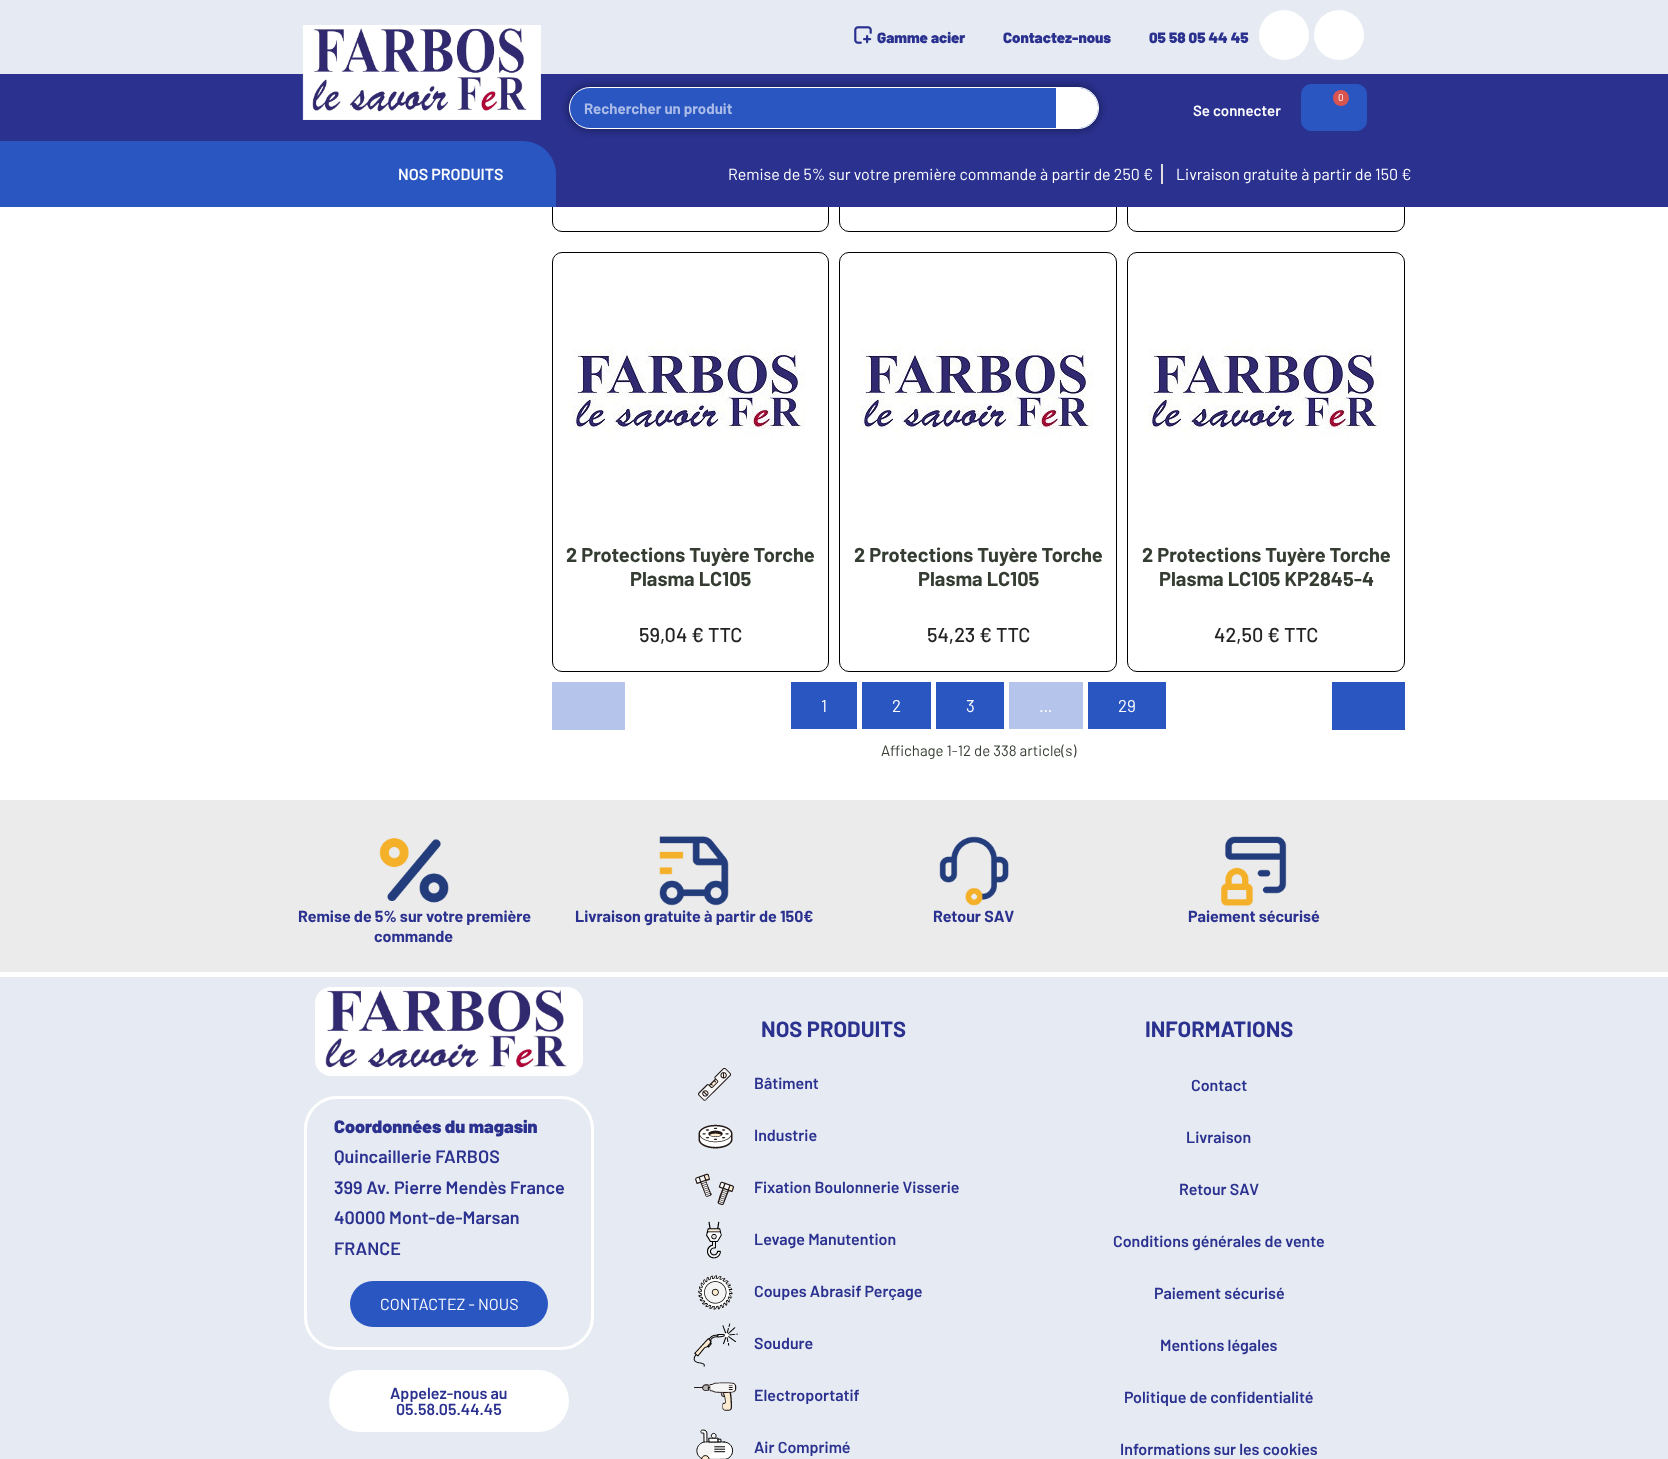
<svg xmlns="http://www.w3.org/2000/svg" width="1668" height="1459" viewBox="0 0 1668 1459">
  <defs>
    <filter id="blur1" x="-50%" y="-200%" width="200%" height="500%"><feGaussianBlur stdDeviation="5"/></filter>
  </defs>
  <rect width="100%" height="100%" fill="#ffffff"/>
  <rect x="552.5" y="-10.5" width="276" height="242" rx="9.5" fill="none" stroke="#000000"/>
  <rect x="839.5" y="-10.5" width="277" height="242" rx="9.5" fill="none" stroke="#000000"/>
  <rect x="1127.5" y="-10.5" width="277" height="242" rx="9.5" fill="none" stroke="#000000"/>
  <rect x="0" y="0" width="1668" height="74" fill="#e6eaf2"/>
  <image x="854" y="26" width="18" height="18" href="img1.png"/>
  <text x="877" y="43" font-family="Barlow" font-size="15" font-weight="900" fill="#2a318f">Gamme acier</text>
  <text x="1003" y="43" font-family="Barlow" font-size="15" font-weight="900" fill="#2a318f">Contactez-nous</text>
  <text x="1149" y="43" font-family="Barlow" font-size="15" font-weight="900" fill="#2a318f">05 58 05 44 45</text>
  <circle cx="1284" cy="35" r="25" fill="#ffffff"/>
  <circle cx="1339" cy="35" r="25" fill="#ffffff"/>
  <rect x="0" y="74" width="1668" height="67" fill="#2a318f"/>
  <image x="302" y="25" width="239" height="95" href="img2.png"/>
  <rect x="523" y="141" width="1145" height="66" fill="#2a318f"/>
  <path d="M0 141H523C541 141 556 156 556 174V207H0Z" fill="#2a56c2"/>
  <rect x="569" y="87" width="530" height="42" rx="21" fill="#000000" fill-opacity="0.5" filter="url(#blur1)"/>
  <rect x="569.5" y="87.5" width="529" height="41" rx="20.5" fill="#2a56c2" stroke="#ffffff"/>
  <text x="584" y="114" font-family="Barlow" font-size="15" font-weight="bold" fill="#aabbe7">Rechercher un produit</text>
  <path d="M1056 88H1078C1089 88 1098 97 1098 108C1098 119 1089 128 1078 128H1056Z" fill="#ffffff"/>
  <rect x="1301.5" y="84.5" width="65" height="46" rx="9.5" fill="#2a56c2" stroke="#2a56c2"/>
  <circle cx="1341" cy="98" r="8" fill="#d9534f"/>
  <text x="1338" y="101" font-family="Barlow" font-size="10" fill="#ffffff">0</text>
  <text x="1193" y="116" font-family="Barlow" font-size="15" font-weight="600" fill="#ffffff">Se connecter</text>
  <text x="398" y="180" font-family="Barlow" font-size="16" font-weight="600" fill="#ffffff">NOS PRODUITS</text>
  <text x="728" y="180" font-family="Barlow" font-size="16" fill="#ffffff">Remise de 5% sur votre première commande à partir de 250 €</text>
  <rect x="1161" y="164" width="2" height="20" fill="#dddddd"/>
  <text x="1176" y="180" font-family="Barlow" font-size="16" fill="#ffffff">Livraison gratuite à partir de 150 €</text>
  <rect x="552.5" y="252.5" width="276" height="419" rx="9.5" fill="none" stroke="#000000"/>
  <image x="567" y="341" width="238" height="96" href="img3.png"/>
  <text x="566" y="562" font-family="Barlow" font-size="20" font-weight="bold" fill="#353d33">2 Protections Tuyère Torche</text>
  <text x="630" y="586" font-family="Barlow" font-size="20" font-weight="bold" fill="#353d33">Plasma LC105</text>
  <text x="639" y="642" font-family="Barlow" font-size="20" font-weight="500" fill="#232323">59,04 € TTC</text>
  <rect x="839.5" y="252.5" width="277" height="419" rx="9.5" fill="none" stroke="#000000"/>
  <image x="855" y="341" width="238" height="96" href="img3.png"/>
  <text x="854" y="562" font-family="Barlow" font-size="20" font-weight="bold" fill="#353d33">2 Protections Tuyère Torche</text>
  <text x="918" y="586" font-family="Barlow" font-size="20" font-weight="bold" fill="#353d33">Plasma LC105</text>
  <text x="927" y="642" font-family="Barlow" font-size="20" font-weight="500" fill="#232323">54,23 € TTC</text>
  <rect x="1127.5" y="252.5" width="277" height="419" rx="9.5" fill="none" stroke="#000000"/>
  <image x="1143" y="341" width="238" height="96" href="img3.png"/>
  <text x="1142" y="562" font-family="Barlow" font-size="20" font-weight="bold" fill="#353d33">2 Protections Tuyère Torche</text>
  <text x="1159" y="586" font-family="Barlow" font-size="20" font-weight="bold" fill="#353d33">Plasma LC105 KP2845-4</text>
  <text x="1214" y="642" font-family="Barlow" font-size="20" font-weight="500" fill="#232323">42,50 € TTC</text>
  <rect x="552" y="682" width="73" height="48" fill="#b4c4ea"/>
  <rect x="791" y="682" width="66" height="47" fill="#2a56c2"/>
  <text x="821" y="712" font-family="Barlow" font-size="17" fill="#ffffff">1</text>
  <rect x="862" y="682" width="69" height="47" fill="#2a56c2"/>
  <text x="892" y="712" font-family="Barlow" font-size="17" fill="#ffffff">2</text>
  <rect x="936" y="682" width="68" height="47" fill="#2a56c2"/>
  <text x="966" y="712" font-family="Barlow" font-size="17" fill="#ffffff">3</text>
  <rect x="1009" y="682" width="74" height="47" fill="#b4c4ea"/>
  <text x="1039" y="712" font-family="Barlow" font-size="17" fill="#ffffff">…</text>
  <rect x="1088" y="682" width="78" height="47" fill="#2a56c2"/>
  <text x="1118" y="712" font-family="Barlow" font-size="17" fill="#ffffff">29</text>
  <rect x="1332" y="682" width="73" height="48" fill="#2a56c2"/>
  <text x="881" y="756" font-family="Barlow" font-size="15" fill="#353d33">Affichage 1-12 de 338 article(s)</text>
  <rect x="0" y="800" width="1668" height="172" fill="#ebebeb"/>
  <image x="379" y="838" width="70" height="65" href="img4.png"/>
  <text x="298" y="922" font-family="Barlow" font-size="16" font-weight="bold" fill="#2a318f">Remise de 5% sur votre première</text>
  <text x="374" y="942" font-family="Barlow" font-size="16" font-weight="bold" fill="#2a318f">commande</text>
  <image x="659" y="836" width="70" height="70" href="img5.png"/>
  <text x="575" y="922" font-family="Barlow" font-size="16" font-weight="bold" fill="#2a318f">Livraison gratuite à partir de 150€</text>
  <image x="939" y="836" width="70" height="70" href="img6.png"/>
  <text x="933" y="922" font-family="Barlow" font-size="16" font-weight="bold" fill="#2a318f">Retour SAV</text>
  <image x="1221" y="836" width="66" height="70" href="img7.png"/>
  <text x="1188" y="922" font-family="Barlow" font-size="16" font-weight="bold" fill="#2a318f">Paiement sécurisé</text>
  <rect x="0" y="977" width="1668" height="482" fill="#e6eaf2"/>
  <image x="315" y="987" width="268" height="89" href="img8.png"/>
  <rect x="305.5" y="1097.5" width="287" height="251" rx="31.5" fill="none" stroke="#ffffff" stroke-width="3"/>
  <text x="334" y="1133" font-family="Barlow" font-size="18" font-weight="900" fill="#2a318f">Coordonnées du magasin</text>
  <text x="334" y="1163" font-family="Barlow" font-size="18" font-weight="600" fill="#2a318f">Quincaillerie FARBOS</text>
  <text x="334" y="1194" font-family="Barlow" font-size="18" font-weight="600" fill="#2a318f">399 Av. Pierre Mendès France</text>
  <text x="334" y="1224" font-family="Barlow" font-size="18" font-weight="600" fill="#2a318f">40000 Mont-de-Marsan</text>
  <text x="334" y="1255" font-family="Barlow" font-size="18" font-weight="600" fill="#2a318f">FRANCE</text>
  <rect x="350" y="1281" width="198" height="46" rx="23" fill="#2a56c2"/>
  <text x="380" y="1310" font-family="Barlow" font-size="16" fill="#ffffff">CONTACTEZ - NOUS</text>
  <rect x="329" y="1370" width="240" height="62" rx="31" fill="#ffffff"/>
  <text x="390" y="1399" font-family="Barlow" font-size="16" font-weight="600" fill="#2a318f">Appelez-nous au</text>
  <text x="396" y="1415" font-family="Barlow" font-size="16" font-weight="600" fill="#2a318f">05.58.05.44.45</text>
  <text x="761" y="1037" font-family="Barlow" font-size="22" font-weight="bold" fill="#2a318f">NOS PRODUITS</text>
  <image x="698" y="1068" width="33" height="33" href="img9.png"/>
  <text x="754" y="1089" font-family="Barlow" font-size="16" font-weight="600" fill="#2a318f">Bâtiment</text>
  <image x="698" y="1124" width="35" height="25" href="img10.png"/>
  <text x="754" y="1141" font-family="Barlow" font-size="16" font-weight="600" fill="#2a318f">Industrie</text>
  <image x="695" y="1173" width="39" height="32" href="img11.png"/>
  <text x="754" y="1193" font-family="Barlow" font-size="16" font-weight="600" fill="#2a318f">Fixation Boulonnerie Visserie</text>
  <image x="706" y="1221" width="16" height="38" href="img12.png"/>
  <text x="754" y="1245" font-family="Barlow" font-size="16" font-weight="600" fill="#2a318f">Levage Manutention</text>
  <image x="698" y="1275" width="35" height="35" href="img13.png"/>
  <text x="754" y="1297" font-family="Barlow" font-size="16" font-weight="600" fill="#2a318f">Coupes Abrasif Perçage</text>
  <image x="693" y="1323" width="45" height="44" href="img14.png"/>
  <text x="754" y="1349" font-family="Barlow" font-size="16" font-weight="600" fill="#2a318f">Soudure</text>
  <image x="694" y="1382" width="43" height="29" href="img15.png"/>
  <text x="754" y="1401" font-family="Barlow" font-size="16" font-weight="600" fill="#2a318f">Electroportatif</text>
  <image x="696" y="1429" width="38" height="30" href="img16.png"/>
  <text x="754" y="1453" font-family="Barlow" font-size="16" font-weight="600" fill="#2a318f">Air Comprimé</text>
  <text x="1145" y="1037" font-family="Barlow" font-size="22" font-weight="bold" fill="#2a318f">INFORMATIONS</text>
  <text x="1191" y="1091" font-family="Barlow" font-size="16" font-weight="600" fill="#2a318f">Contact</text>
  <text x="1186" y="1143" font-family="Barlow" font-size="16" font-weight="600" fill="#2a318f">Livraison</text>
  <text x="1179" y="1195" font-family="Barlow" font-size="16" font-weight="600" fill="#2a318f">Retour SAV</text>
  <text x="1113" y="1247" font-family="Barlow" font-size="16" font-weight="600" fill="#2a318f">Conditions générales de vente</text>
  <text x="1154" y="1299" font-family="Barlow" font-size="16" font-weight="600" fill="#2a318f">Paiement sécurisé</text>
  <text x="1160" y="1351" font-family="Barlow" font-size="16" font-weight="600" fill="#2a318f">Mentions légales</text>
  <text x="1124" y="1403" font-family="Barlow" font-size="16" font-weight="600" fill="#2a318f">Politique de confidentialité</text>
  <text x="1120" y="1455" font-family="Barlow" font-size="16" font-weight="600" fill="#2a318f">Informations sur les cookies</text>
</svg>
